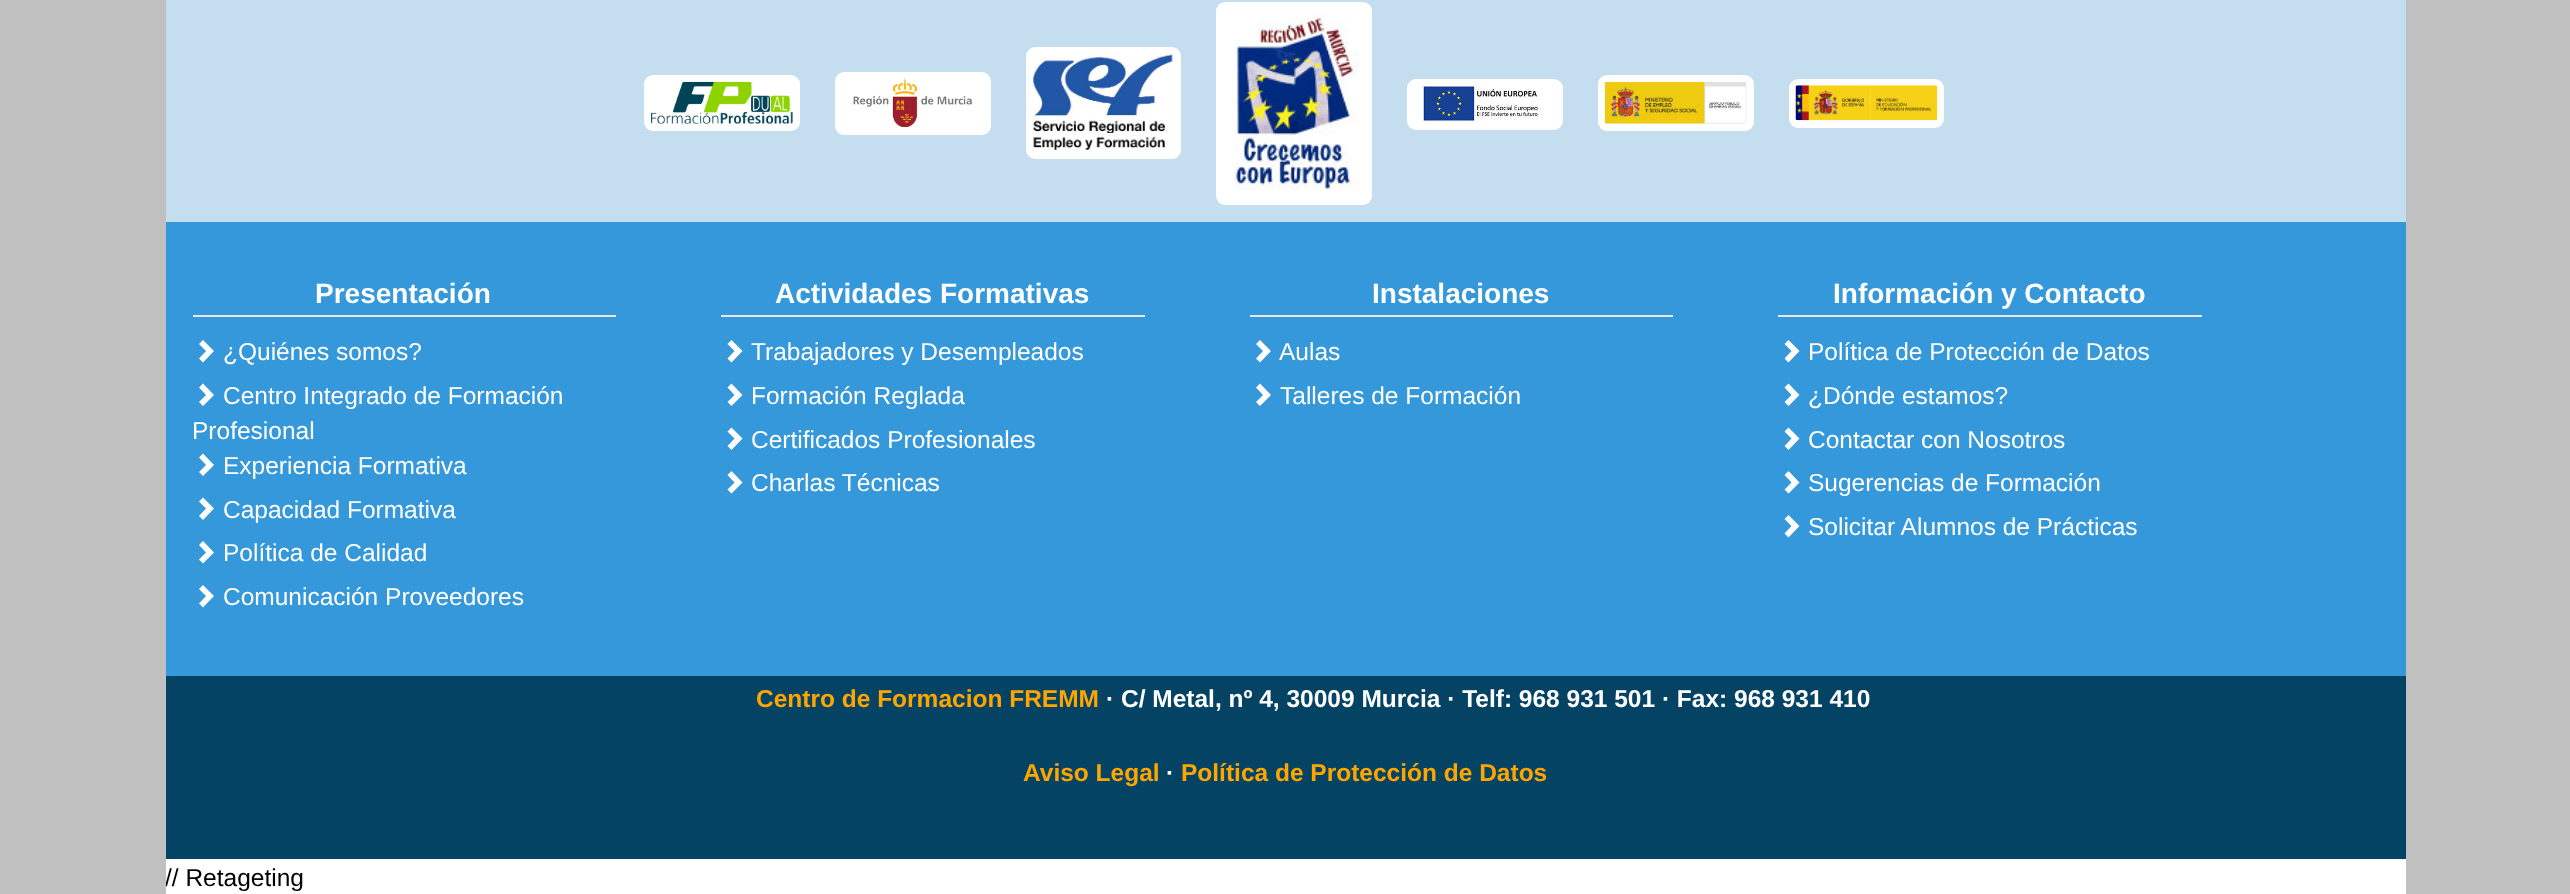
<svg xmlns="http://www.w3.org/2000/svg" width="2570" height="894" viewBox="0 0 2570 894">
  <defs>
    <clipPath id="clip1"><rect x="166" y="0" width="2240" height="894"/></clipPath>
  </defs>
  <rect width="100%" height="100%" fill="#c0c0c0"/>
  <rect x="166" y="859" width="2240" height="35" fill="#ffffff"/>
  <rect x="166" y="0" width="2240" height="222" fill="#c4ddef"/>
  <rect x="1216" y="2" width="156" height="203" rx="9" fill="#ffffff"/>
  <rect x="1026" y="47" width="155" height="112" rx="9" fill="#ffffff"/>
  <image x="1234" y="13" width="126" height="177" href="img1.png"/>
  <rect x="644" y="75" width="156" height="56" rx="9" fill="#ffffff"/>
  <rect x="835" y="72" width="156" height="63" rx="9" fill="#ffffff"/>
  <image x="1032" y="54" width="141" height="97" href="img2.png"/>
  <rect x="1598" y="75" width="156" height="56" rx="9" fill="#ffffff"/>
  <image x="651" y="81" width="142" height="43" href="img3.png"/>
  <image x="853" y="78" width="119" height="50" href="img4.png"/>
  <rect x="1407" y="79" width="156" height="51" rx="9" fill="#ffffff"/>
  <image x="1604" y="81" width="143" height="43" href="img5.png"/>
  <rect x="1789" y="79" width="155" height="49" rx="9" fill="#ffffff"/>
  <image x="1422" y="85" width="116" height="37" href="img6.png"/>
  <image x="1795" y="85" width="143" height="36" href="img7.png"/>
  <rect x="166" y="222" width="2240" height="454" fill="#3498db"/>
  <rect x="193" y="315" width="423" height="2" fill="#e7e7e7"/>
  <text x="315" y="303" font-family="Liberation Sans" font-size="28" font-weight="bold" fill="#ffffff">Presentación</text>
  <path d="M214 351L203 362.5L199 358.5L206 351L199 344L203 340Z" fill="#ffffff"/>
  <text x="223" y="360" font-family="Liberation Sans" font-size="24.5" fill="#ffffff">¿Quiénes somos?</text>
  <path d="M214 395L203 406L199 402L206 395L199 387.5L203 383.5Z" fill="#ffffff"/>
  <text x="223" y="404" font-family="Liberation Sans" font-size="24.5" fill="#ffffff">Centro Integrado de Formación</text>
  <text x="192" y="439" font-family="Liberation Sans" font-size="24.5" fill="#ffffff">Profesional</text>
  <path d="M214 465L203 476L199 472L206 465L199 457.5L203 453.5Z" fill="#ffffff"/>
  <text x="223" y="474" font-family="Liberation Sans" font-size="24.5" fill="#ffffff">Experiencia Formativa</text>
  <path d="M214 508.5L203 520L199 516L206 508.5L199 501.5L203 497.5Z" fill="#ffffff"/>
  <text x="223" y="518" font-family="Liberation Sans" font-size="24.5" fill="#ffffff">Capacidad Formativa</text>
  <path d="M214 552.5L203 563.5L199 559.5L206 552.5L199 545L203 541Z" fill="#ffffff"/>
  <text x="223" y="561" font-family="Liberation Sans" font-size="24.5" fill="#ffffff">Política de Calidad</text>
  <path d="M214 596L203 607.5L199 603.5L206 596L199 589L203 585Z" fill="#ffffff"/>
  <text x="223" y="605" font-family="Liberation Sans" font-size="24.5" fill="#ffffff">Comunicación Proveedores</text>
  <rect x="721" y="315" width="424" height="2" fill="#e7e7e7"/>
  <text x="775" y="303" font-family="Liberation Sans" font-size="28" font-weight="bold" fill="#ffffff">Actividades Formativas</text>
  <path d="M742.5 351L731.5 362.5L727.5 358.5L734.5 351L727.5 344L731.5 340Z" fill="#ffffff"/>
  <text x="751" y="360" font-family="Liberation Sans" font-size="24.5" fill="#ffffff">Trabajadores y Desempleados</text>
  <path d="M742.5 395L731.5 406L727.5 402L734.5 395L727.5 387.5L731.5 383.5Z" fill="#ffffff"/>
  <text x="751" y="404" font-family="Liberation Sans" font-size="24.5" fill="#ffffff">Formación Reglada</text>
  <path d="M742.5 438.5L731.5 450L727.5 446L734.5 438.5L727.5 431.5L731.5 427.5Z" fill="#ffffff"/>
  <text x="751" y="448" font-family="Liberation Sans" font-size="24.5" fill="#ffffff">Certificados Profesionales</text>
  <path d="M742.5 482.5L731.5 493.5L727.5 489.5L734.5 482.5L727.5 475L731.5 471Z" fill="#ffffff"/>
  <text x="751" y="491" font-family="Liberation Sans" font-size="24.5" fill="#ffffff">Charlas Técnicas</text>
  <rect x="1250" y="315" width="423" height="2" fill="#e7e7e7"/>
  <text x="1372" y="303" font-family="Liberation Sans" font-size="28" font-weight="bold" fill="#ffffff">Instalaciones</text>
  <path d="M1271 351L1260 362.5L1256 358.5L1263 351L1256 344L1260 340Z" fill="#ffffff"/>
  <text x="1279" y="360" font-family="Liberation Sans" font-size="24.5" fill="#ffffff">Aulas</text>
  <path d="M1271 395L1260 406L1256 402L1263 395L1256 387.5L1260 383.5Z" fill="#ffffff"/>
  <text x="1280" y="404" font-family="Liberation Sans" font-size="24.5" fill="#ffffff">Talleres de Formación</text>
  <rect x="1778" y="315" width="424" height="2" fill="#e7e7e7"/>
  <text x="1833" y="303" font-family="Liberation Sans" font-size="28" font-weight="bold" fill="#ffffff">Información y Contacto</text>
  <path d="M1799.5 351L1788.5 362.5L1784.5 358.5L1791.5 351L1784.5 344L1788.5 340Z" fill="#ffffff"/>
  <text x="1808" y="360" font-family="Liberation Sans" font-size="24.5" fill="#ffffff">Política de Protección de Datos</text>
  <path d="M1799.5 395L1788.5 406L1784.5 402L1791.5 395L1784.5 387.5L1788.5 383.5Z" fill="#ffffff"/>
  <text x="1808" y="404" font-family="Liberation Sans" font-size="24.5" fill="#ffffff">¿Dónde estamos?</text>
  <path d="M1799.5 438.5L1788.5 450L1784.5 446L1791.5 438.5L1784.5 431.5L1788.5 427.5Z" fill="#ffffff"/>
  <text x="1808" y="448" font-family="Liberation Sans" font-size="24.5" fill="#ffffff">Contactar con Nosotros</text>
  <path d="M1799.5 482.5L1788.5 493.5L1784.5 489.5L1791.5 482.5L1784.5 475L1788.5 471Z" fill="#ffffff"/>
  <text x="1808" y="491" font-family="Liberation Sans" font-size="24.5" fill="#ffffff">Sugerencias de Formación</text>
  <path d="M1799.5 526L1788.5 537.5L1784.5 533.5L1791.5 526L1784.5 519L1788.5 515Z" fill="#ffffff"/>
  <text x="1808" y="535" font-family="Liberation Sans" font-size="24.5" fill="#ffffff">Solicitar Alumnos de Prácticas</text>
  <rect x="166" y="676" width="2240" height="183" fill="#044364"/>
  <text x="756" y="707" font-family="Liberation Sans" font-size="24.5" font-weight="bold" fill="#ffa500">Centro de Formacion FREMM</text>
  <text x="1106" y="707" font-family="Liberation Sans" font-size="24.5" font-weight="bold" fill="#ffffff">· C/ Metal, nº 4, 30009 Murcia · Telf: 968 931 501 · Fax: 968 931 410</text>
  <text x="1023" y="781" font-family="Liberation Sans" font-size="24.5" font-weight="bold" fill="#ffa500">Aviso Legal</text>
  <text x="1166" y="781" font-family="Liberation Sans" font-size="24.5" font-weight="bold" fill="#ffffff">·</text>
  <text x="1181" y="781" font-family="Liberation Sans" font-size="24.5" font-weight="bold" fill="#ffa500">Política de Protección de Datos</text>
  <g clip-path="url(#clip1)">
    <text x="165" y="886" font-family="Liberation Sans" font-size="24.5" fill="#000000">// Retageting</text>
  </g>
</svg>
